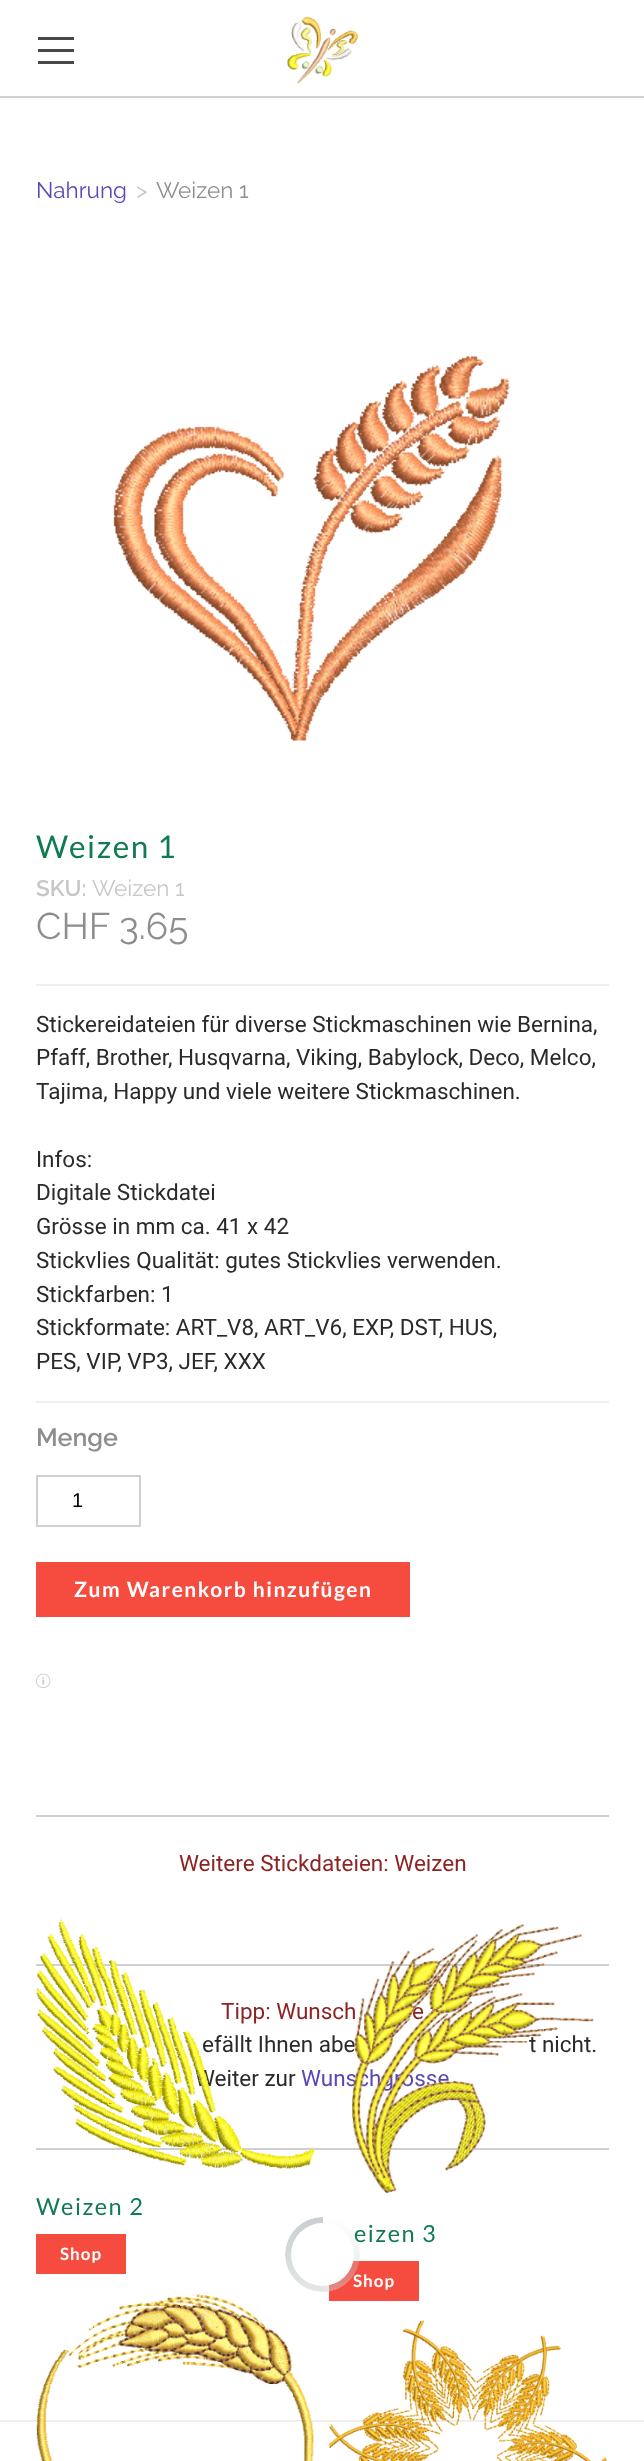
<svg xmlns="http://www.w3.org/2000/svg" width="644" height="2461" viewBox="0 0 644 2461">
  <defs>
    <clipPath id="clip1"><rect x="285" y="2217" width="75" height="75" rx="37.5"/></clipPath>
    <linearGradient id="g1" gradientUnits="userSpaceOnUse" x1="304" y1="2217" x2="304" y2="2292"><stop offset="0" stop-color="#c9cdcf"/><stop offset="1" stop-color="#e4e6e7"/></linearGradient>
    <linearGradient id="g2" gradientUnits="userSpaceOnUse" x1="341" y1="2292" x2="341" y2="2217"><stop offset="0" stop-color="#c9cdcf" stop-opacity="0.5"/><stop offset="1" stop-color="#c9cdcf" stop-opacity="0"/></linearGradient>
  </defs>
  <rect width="100%" height="100%" fill="#ffffff"/>
  <rect x="0" y="96" width="644" height="2" fill="#d0d0d0"/>
  <rect x="38" y="37" width="36" height="3" fill="#484848"/>
  <rect x="38" y="49" width="36" height="3" fill="#484848"/>
  <rect x="38" y="61" width="36" height="3" fill="#484848"/>
  <image x="287" y="16" width="71" height="68" href="img1.png"/>
  <text x="36" y="198" font-family="Raleway" font-size="22.5" font-weight="100" fill="#5848b7">Nahrung</text>
  <text x="136" y="198" font-family="Raleway" font-size="22.5" font-weight="100" fill="#c7c7c7">&gt;</text>
  <text x="156" y="198" font-family="Raleway" font-size="22.5" font-weight="100" fill="#8e8e8e">Weizen 1</text>
  <image x="113" y="356" width="398" height="385" href="img2.png"/>
  <text x="36" y="858" font-family="Lato" font-size="31.5" letter-spacing="1.5" fill="#107b50">Weizen 1</text>
  <text x="36" y="896" font-family="'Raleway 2'" font-size="22.5" font-weight="100" fill="#c7c7c7">SKU:</text>
  <text x="92" y="896" font-family="Raleway" font-size="22.5" font-weight="100" fill="#c7c7c7">Weizen 1</text>
  <rect x="36" y="984" width="573" height="2" fill="#efefef"/>
  <text x="36" y="939" font-family="Raleway" font-size="37" font-weight="100" fill="#8e8e8e">CHF 3.65</text>
  <text x="36" y="1032" font-family="Roboto" font-size="22.5" fill="#2a2a2a">Stickereidateien für diverse Stickmaschinen wie Bernina,</text>
  <text x="36" y="1065" font-family="Roboto" font-size="22.5" fill="#2a2a2a">Pfaff, Brother, Husqvarna, Viking, Babylock, Deco, Melco,</text>
  <text x="36" y="1099" font-family="Roboto" font-size="22.5" fill="#2a2a2a">Tajima, Happy und viele weitere Stickmaschinen.</text>
  <text x="36" y="1167" font-family="Roboto" font-size="22.5" fill="#2a2a2a">Infos:</text>
  <text x="36" y="1200" font-family="Roboto" font-size="22.5" fill="#2a2a2a">Digitale Stickdatei</text>
  <text x="36" y="1234" font-family="Roboto" font-size="22.5" fill="#2a2a2a">Grösse in mm ca. 41 x 42</text>
  <text x="36" y="1268" font-family="Roboto" font-size="22.5" fill="#2a2a2a">Stickvlies Qualität: gutes Stickvlies verwenden.</text>
  <text x="36" y="1302" font-family="Roboto" font-size="22.5" fill="#2a2a2a">Stickfarben: 1</text>
  <text x="36" y="1335" font-family="Roboto" font-size="22.5" fill="#2a2a2a">Stickformate: ART_V8, ART_V6, EXP, DST, HUS,</text>
  <text x="36" y="1369" font-family="Roboto" font-size="22.5" fill="#2a2a2a">PES, VIP, VP3, JEF, XXX</text>
  <rect x="36" y="1401" width="573" height="2" fill="#efefef"/>
  <text x="36" y="1446" font-family="'Raleway 2'" font-size="25" font-weight="100" fill="#8e8e8e">Menge</text>
  <rect x="37" y="1476" width="103" height="50" fill="none" stroke="#d0d0d0" stroke-width="2"/>
  <text x="72" y="1507" font-family="Liberation Sans" font-size="20" fill="#000000">1</text>
  <rect x="36" y="1562" width="374" height="55" fill="#f64c3f"/>
  <text x="74" y="1597" font-family="Lato" font-size="21" font-weight="bold" letter-spacing="1.5" fill="#ffffff">Zum Warenkorb hinzufügen</text>
  <image x="36" y="1673" width="15" height="15" href="img3.png"/>
  <rect x="36" y="1815" width="573" height="2" fill="#d0d0d0"/>
  <text x="179" y="1871" font-family="Roboto" font-size="22.5" fill="#8d2424">Weitere Stickdateien: Weizen</text>
  <rect x="36" y="1964" width="573" height="2" fill="#d0d0d0"/>
  <text x="221" y="2019" font-family="Roboto" font-size="22.5" fill="#8d2424">Tipp: Wunsch</text>
  <text x="412" y="2019" font-family="Roboto" font-size="22.5" fill="#8d2424">e</text>
  <text x="202" y="2052" font-family="Roboto" font-size="22.5" fill="#2a2a2a">efällt Ihnen abe</text>
  <text x="529" y="2052" font-family="Roboto" font-size="22.5" fill="#2a2a2a">t nicht.</text>
  <text x="195" y="2086" font-family="Roboto" font-size="22.5" fill="#2a2a2a">Weiter zur</text>
  <text x="301" y="2086" font-family="Roboto" font-size="22.5" fill="#5848b7">Wunschgrösse</text>
  <rect x="36" y="2148" width="573" height="2" fill="#d0d0d0"/>
  <image x="36" y="1919" width="279" height="250" href="img4.png"/>
  <text x="36" y="2215" font-family="Lato" font-size="23.5" letter-spacing="1.5" fill="#107b50">Weizen 2</text>
  <rect x="36" y="2234" width="90" height="40" fill="#f64c3f"/>
  <text x="60" y="2260" font-family="Lato" font-size="17" font-weight="bold" letter-spacing="1" fill="#ffffff">Shop</text>
  <image x="352" y="1924" width="242" height="270" href="img5.png"/>
  <text x="354" y="2242" font-family="Lato" font-size="23.5" letter-spacing="1.5" fill="#107b50">eizen 3</text>
  <rect x="329" y="2261" width="90" height="40" fill="#f64c3f"/>
  <text x="353" y="2287" font-family="Lato" font-size="17" font-weight="bold" letter-spacing="1" fill="#ffffff">Shop</text>
  <rect x="0" y="2420" width="644" height="2" fill="#efefef"/>
  <image x="36" y="2294" width="278" height="167" href="img6.png"/>
  <image x="328" y="2320" width="279" height="141" href="img7.png"/>
  <g clip-path="url(#clip1)">
    <path d="M322.5 2217H323V2292H322.5C302 2292 285 2275 285 2254.5C285 2234 302 2217 322.5 2217Z" fill="url(#g1)"/>
    <rect x="323" y="2220" width="37" height="72" fill="url(#g2)"/>
  </g>
  <circle cx="322.5" cy="2254.5" r="31.5" fill="#ffffff"/>
</svg>
